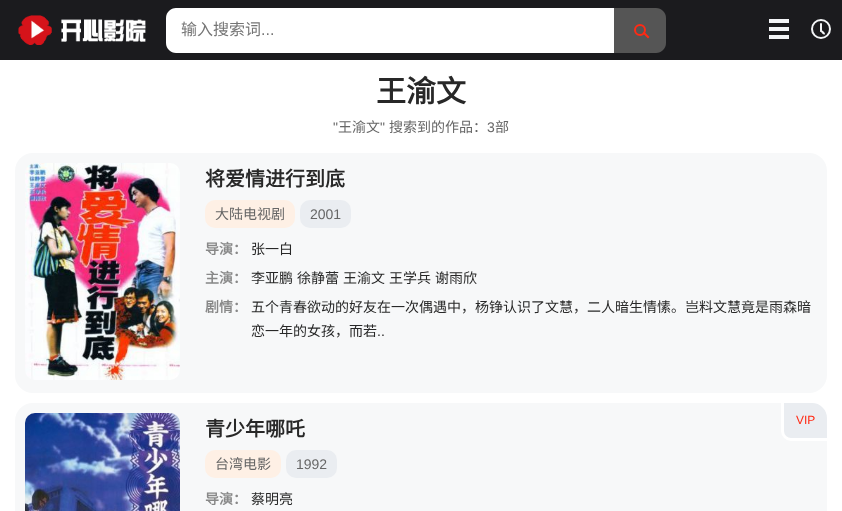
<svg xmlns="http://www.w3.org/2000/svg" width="842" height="511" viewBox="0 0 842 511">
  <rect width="100%" height="100%" fill="#ffffff"/>
  <rect x="0" y="0" width="842" height="60" fill="#1b1b1e"/>
  <image x="18" y="15" width="128" height="30" href="img1.png"/>
  <path d="M176 8H616V53H176C170.5 53 166 48.5 166 43V18C166 12.5 170.5 8 176 8Z" fill="#ffffff"/>
  <text x="181" y="35" font-family="Noto Sans CJK SC" font-size="16" fill="#757575">输入搜索词</text>
  <text x="261" y="35" font-family="Liberation Sans" font-size="16" fill="#757575">...</text>
  <path d="M614 8H656C661.5 8 666 12.5 666 18V43C666 48.5 661.5 53 656 53H614Z" fill="#555555"/>
  <circle cx="640" cy="30" r="5" fill="none" stroke="#ff2a14" stroke-width="2"/>
  <path d="M644 31.5L649.5 37L648 38.5L642.5 33Z" fill="#ff2a14"/>
  <rect x="769" y="35" width="20" height="4" fill="#f3f5f7"/>
  <rect x="769" y="19" width="20" height="4" fill="#f3f5f7"/>
  <rect x="769" y="27" width="20" height="4" fill="#f3f5f7"/>
  <circle cx="821" cy="29" r="9" fill="none" stroke="#f3f5f7" stroke-width="2"/>
  <rect x="820" y="23" width="2" height="9" rx="1" fill="#f3f5f7"/>
  <path d="M821.5 30L823.5 31.5C824 32 825 33 825 34C824 36 821.5 32.5 821 32C819 30 821 29 821.5 30Z" fill="#f3f5f7"/>
  <text x="376" y="102" font-family="Noto Sans CJK SC" font-size="30" font-weight="bold" fill="#282828">王渝文</text>
  <text x="333" y="132" font-family="Liberation Sans" font-size="14" fill="#666666">"</text>
  <text x="338" y="132" font-family="Noto Sans CJK SC" font-size="14" fill="#666666">王渝文</text>
  <text x="380" y="132" font-family="Liberation Sans" font-size="14" fill="#666666">"</text>
  <text x="389" y="132" font-family="Noto Sans CJK SC" font-size="14" fill="#666666">搜索到的作品：</text>
  <text x="487" y="132" font-family="Liberation Sans" font-size="14" fill="#666666">3</text>
  <text x="495" y="132" font-family="Noto Sans CJK SC" font-size="14" fill="#666666">部</text>
  <rect x="15" y="153" width="812" height="240" rx="18" fill="#f7f8f9"/>
  <image x="25" y="163" width="155" height="217" href="img2.png"/>
  <text x="205" y="186" font-family="Noto Sans CJK SC" font-size="20" font-weight="bold" fill="#282828">将爱情进行到底</text>
  <rect x="205" y="200" width="90" height="28" rx="10" fill="#fef0e5"/>
  <text x="215" y="219" font-family="Noto Sans CJK SC" font-size="14" fill="#666666">大陆电视剧</text>
  <rect x="300" y="200" width="51" height="28" rx="10" fill="#eaedf1"/>
  <text x="310" y="219" font-family="Liberation Sans" font-size="14" fill="#666666">2001</text>
  <text x="205" y="254" font-family="Noto Sans CJK SC" font-size="14" font-weight="bold" fill="#888888">导演：</text>
  <text x="251" y="254" font-family="Noto Sans CJK SC" font-size="14" fill="#282828">张一白</text>
  <text x="205" y="283" font-family="Noto Sans CJK SC" font-size="14" font-weight="bold" fill="#888888">主演：</text>
  <text x="251" y="283" font-family="Noto Sans CJK SC" font-size="14" fill="#282828">李亚鹏</text>
  <text x="297" y="283" font-family="Noto Sans CJK SC" font-size="14" fill="#282828">徐静蕾</text>
  <text x="343" y="283" font-family="Noto Sans CJK SC" font-size="14" fill="#282828">王渝文</text>
  <text x="389" y="283" font-family="Noto Sans CJK SC" font-size="14" fill="#282828">王学兵</text>
  <text x="435" y="283" font-family="Noto Sans CJK SC" font-size="14" fill="#282828">谢雨欣</text>
  <text x="205" y="312" font-family="Noto Sans CJK SC" font-size="14" font-weight="bold" fill="#888888">剧情：</text>
  <text x="251" y="312" font-family="Noto Sans CJK SC" font-size="14" fill="#282828">五个青春欲动的好友在一次偶遇中，杨铮认识了文慧，二人暗生情愫。岂料文慧竟是雨森暗</text>
  <text x="251" y="336" font-family="Noto Sans CJK SC" font-size="14" fill="#282828">恋一年的女孩，而若</text>
  <text x="377" y="336" font-family="Liberation Sans" font-size="14" fill="#282828">..</text>
  <rect x="15" y="403" width="812" height="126" rx="18" fill="#f7f8f9"/>
  <image x="25" y="413" width="155" height="98" href="img3.png"/>
  <text x="205" y="436" font-family="Noto Sans CJK SC" font-size="20" font-weight="bold" fill="#282828">青少年哪吒</text>
  <path d="M782.5 401.5H812C821 401.5 828.5 409 828.5 418V439.5H791C786.5 439.5 782.5 435.5 782.5 431Z" fill="#eaedf1" stroke="#ffffff" stroke-width="3"/>
  <text x="796" y="424" font-family="Liberation Sans" font-size="12" fill="#ff2a14">VIP</text>
  <rect x="205" y="450" width="76" height="28" rx="10" fill="#fef0e5"/>
  <text x="215" y="469" font-family="Noto Sans CJK SC" font-size="14" fill="#666666">台湾电影</text>
  <rect x="286" y="450" width="51" height="28" rx="10" fill="#eaedf1"/>
  <text x="296" y="469" font-family="Liberation Sans" font-size="14" fill="#666666">1992</text>
  <text x="205" y="504" font-family="Noto Sans CJK SC" font-size="14" font-weight="bold" fill="#888888">导演：</text>
  <text x="251" y="504" font-family="Noto Sans CJK SC" font-size="14" fill="#282828">蔡明亮</text>
</svg>
